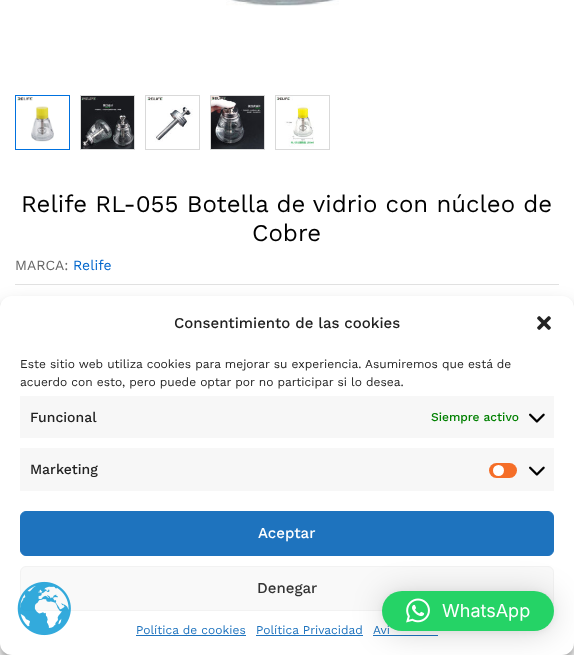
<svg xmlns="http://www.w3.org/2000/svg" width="574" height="655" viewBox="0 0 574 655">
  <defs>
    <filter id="blur1" x="-50%" y="-200%" width="200%" height="500%"><feGaussianBlur stdDeviation="3"/></filter>
    <filter id="blur2" x="-50%" y="-200%" width="200%" height="500%"><feGaussianBlur stdDeviation="10"/></filter>
    <filter id="blur3" x="-50%" y="-200%" width="200%" height="500%"><feGaussianBlur stdDeviation="2.5"/></filter>
    <filter id="blur4" x="-50%" y="-200%" width="200%" height="500%"><feGaussianBlur stdDeviation="16"/></filter>
  </defs>
  <rect width="100%" height="100%" fill="#ffffff"/>
  <image x="226" y="0" width="113" height="6" href="img1.png"/>
  <rect x="15.5" y="95.5" width="54" height="54" fill="none" stroke="#0071df"/>
  <image x="17" y="97" width="37" height="45" href="img2.png"/>
  <rect x="80.5" y="95.5" width="54" height="54" fill="none" stroke="#d9d9d9"/>
  <image x="81" y="96" width="53" height="53" href="img3.png"/>
  <rect x="145.5" y="95.5" width="54" height="54" fill="none" stroke="#d9d9d9"/>
  <image x="146" y="96" width="47" height="46" href="img4.png"/>
  <rect x="210.5" y="95.5" width="54" height="54" fill="none" stroke="#d9d9d9"/>
  <image x="211" y="96" width="53" height="53" href="img5.png"/>
  <rect x="275.5" y="95.5" width="54" height="54" fill="none" stroke="#d9d9d9"/>
  <image x="276" y="96" width="38" height="51" href="img6.png"/>
  <rect x="15" y="284" width="544" height="1" fill="#e1e1e1"/>
  <text x="21" y="212" font-family="Work Sans" font-size="24" fill="#000000">Relife RL-055 Botella de vidrio con núcleo de</text>
  <text x="252" y="241" font-family="Work Sans" font-size="24" fill="#000000">Cobre</text>
  <text x="15" y="270" font-family="Work Sans" font-size="14" fill="#666666">MARCA:</text>
  <text x="73" y="270" font-family="Work Sans" font-size="14" fill="#0066cc">Relife</text>
  <rect x="0" y="302" width="574" height="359" rx="12" fill="#000000" fill-opacity="0.23" filter="url(#blur1)"/>
  <rect x="0" y="306" width="574" height="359" rx="12" fill="#000000" fill-opacity="0.19" filter="url(#blur2)"/>
  <rect x="504" y="581" width="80" height="60" rx="2" fill="#808080" filter="url(#blur3)"/>
  <rect x="0" y="296" width="574" height="359" rx="12" fill="#ffffff"/>
  <text x="174" y="328" font-family="Work Sans" font-size="15" font-weight="500" fill="#222222">Consentimiento de las cookies</text>
  <image x="537" y="316" width="14" height="14" href="img7.png"/>
  <text x="20" y="368" font-family="Work Sans" font-size="12" fill="#222222">Este sitio web utiliza cookies para mejorar su experiencia. Asumiremos que está de</text>
  <text x="20" y="386" font-family="Work Sans" font-size="12" fill="#222222">acuerdo con esto, pero puede optar por no participar si lo desea.</text>
  <rect x="20" y="396" width="534" height="42" fill="#f7f7f7"/>
  <text x="30" y="422" font-family="Work Sans" font-size="14" font-weight="500" fill="#222222">Funcional</text>
  <text x="431" y="421" font-family="Work Sans" font-size="12" font-weight="500" fill="#008000">Siempre activo</text>
  <image x="529" y="413" width="16" height="10" href="img8.png"/>
  <rect x="20" y="448" width="534" height="43" fill="#f7f7f7"/>
  <text x="30" y="474" font-family="Work Sans" font-size="14" font-weight="500" fill="#222222">Marketing</text>
  <rect x="489" y="463" width="28" height="15" rx="7.5" fill="#f56e28"/>
  <circle cx="498.5" cy="470.5" r="5.5" fill="#ffffff"/>
  <image x="529" y="466" width="16" height="10" href="img8.png"/>
  <rect x="20.5" y="511.5" width="533" height="44" rx="5.5" fill="#1e73be" stroke="#1e73be"/>
  <text x="258" y="538" font-family="Work Sans" font-size="15" font-weight="500" fill="#ffffff">Aceptar</text>
  <rect x="20.5" y="566.5" width="533" height="44" rx="5.5" fill="#f9f9f9" stroke="#f2f2f2"/>
  <text x="257" y="593" font-family="Work Sans" font-size="15" font-weight="500" fill="#333333">Denegar</text>
  <text x="136" y="634" font-family="Work Sans" font-size="12" fill="#1e73be">Política de cookies</text>
  <rect x="136" y="635" width="110" height="1" fill="#1e73be"/>
  <text x="256" y="634" font-family="Work Sans" font-size="12" fill="#1e73be">Política Privacidad</text>
  <rect x="256" y="635" width="107" height="1" fill="#1e73be"/>
  <text x="373" y="634" font-family="Work Sans" font-size="12" fill="#1e73be">Avi</text>
  <rect x="373" y="635" width="65" height="1" fill="#1e73be"/>
  <image x="17" y="581" width="54" height="55" href="img9.png"/>
  <rect x="382" y="593" width="172" height="40" rx="20" fill="#000000" fill-opacity="0.16" filter="url(#blur4)"/>
  <rect x="382" y="592" width="172" height="40" rx="20" fill="#000000" fill-opacity="0.06" filter="url(#blur1)"/>
  <rect x="382" y="591" width="172" height="40" rx="20" fill="#25d366"/>
  <image x="406" y="598" width="24" height="25" href="img10.png"/>
  <text x="442" y="617" font-family="Inter" font-size="18" fill="#ffffff">WhatsApp</text>
</svg>
